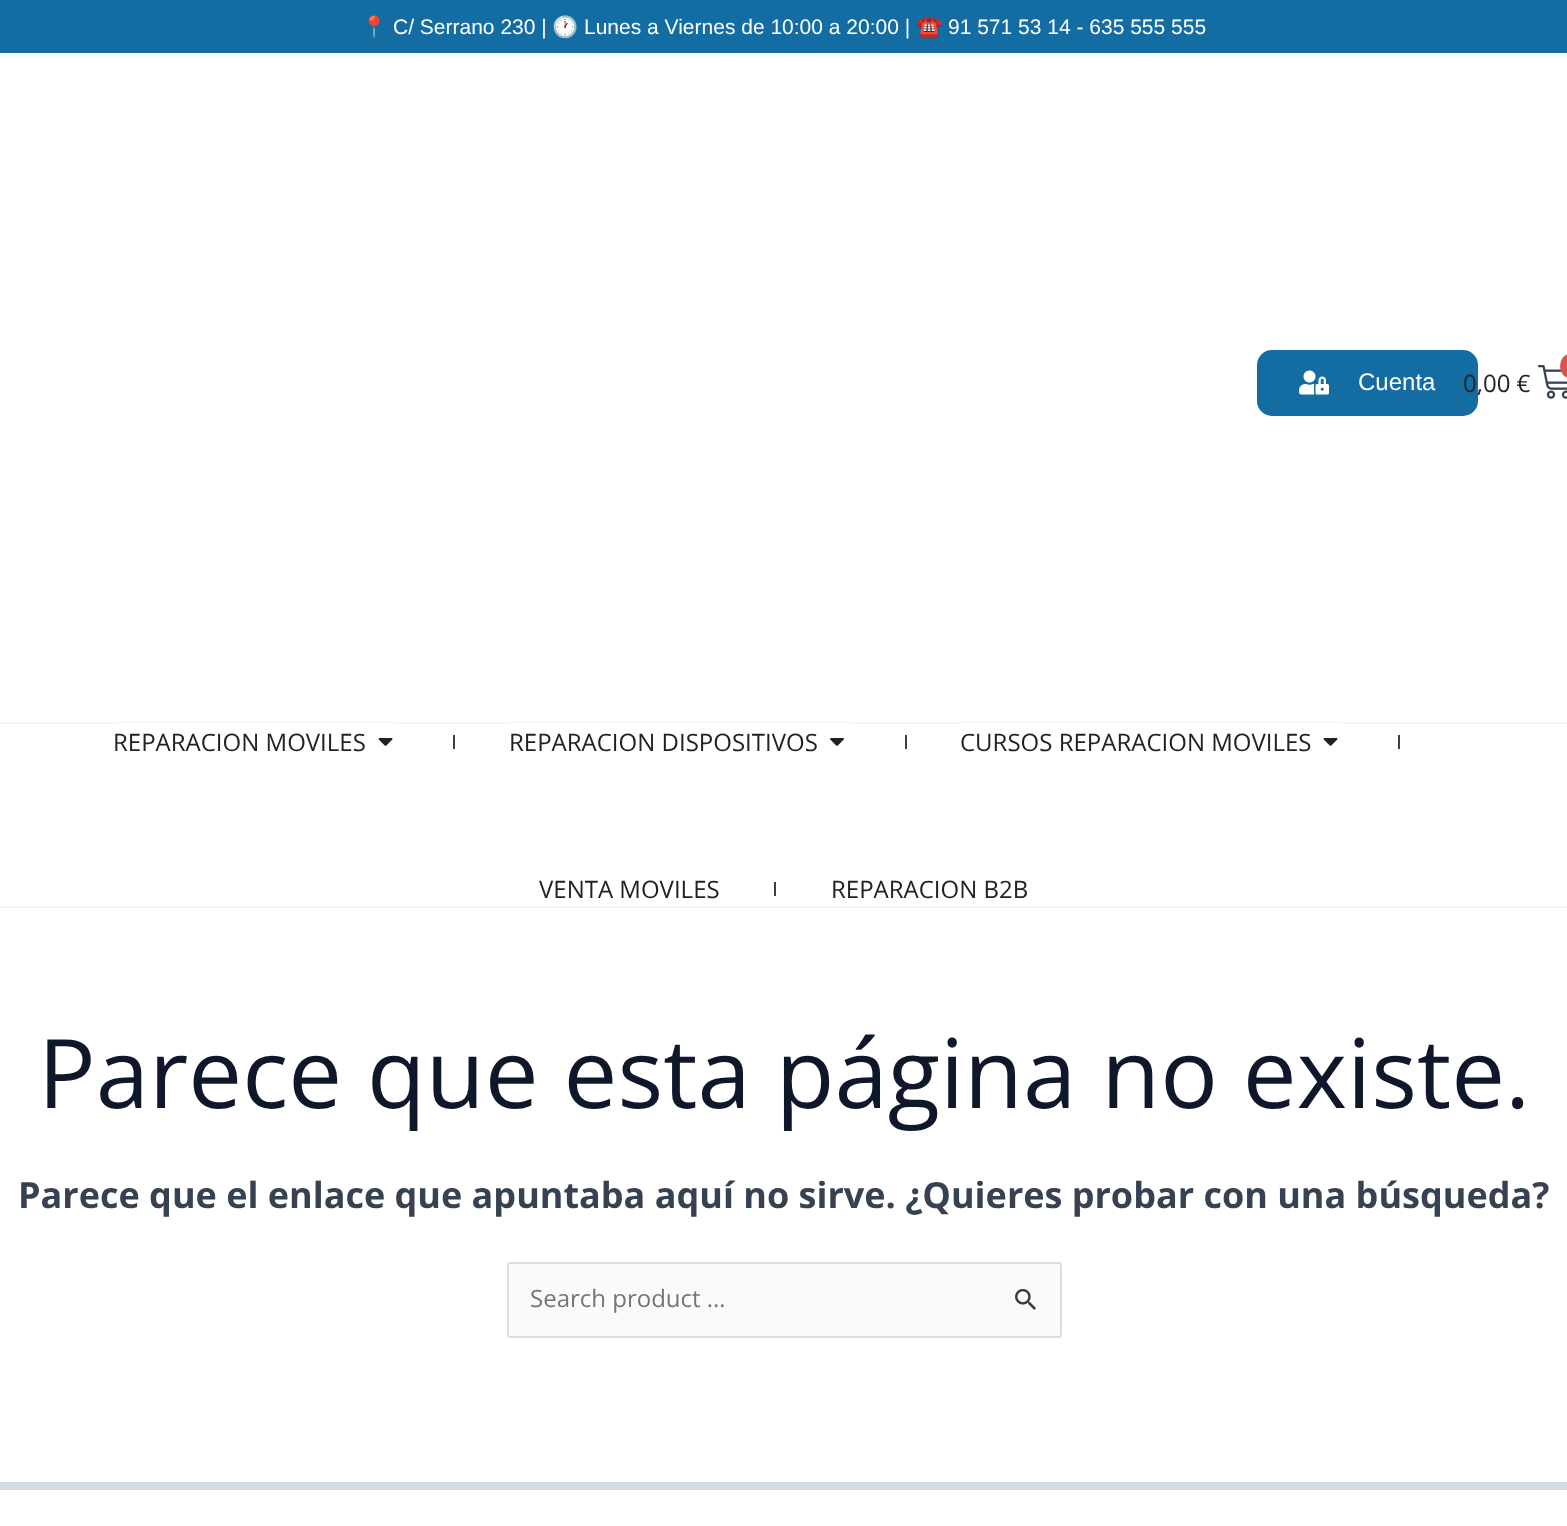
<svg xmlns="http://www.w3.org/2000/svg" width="1567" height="1526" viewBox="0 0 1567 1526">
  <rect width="100%" height="100%" fill="#ffffff"/>
  <rect x="0" y="0" width="1567" height="53" fill="#136da2"/>
  <text x="361" y="34" font-family="Noto Color Emoji" font-size="21" fill="#ffffff">📍</text>
  <text x="393" y="34" font-family="Liberation Sans" font-size="21" fill="#ffffff">C/ Serrano 230 |</text>
  <text x="552" y="34" font-family="Noto Color Emoji" font-size="21" fill="#ffffff">🕐</text>
  <text x="584" y="34" font-family="Liberation Sans" font-size="21" fill="#ffffff">Lunes a Viernes de 10:00 a 20:00 |</text>
  <text x="916" y="34" font-family="Noto Color Emoji" font-size="21" fill="#ffffff">☎️</text>
  <text x="948" y="34" font-family="Liberation Sans" font-size="21" fill="#ffffff">91 571 53 14 - 635 555 555</text>
  <rect x="1257" y="350" width="221" height="66" rx="15" fill="#136da2"/>
  <image x="1299" y="370" width="30" height="25" href="img1.png"/>
  <text x="1358" y="390" font-family="Liberation Sans" font-size="24" fill="#ffffff">Cuenta</text>
  <text x="1463" y="392" font-family="Open Sans" font-size="24" fill="#222222">0,00 €</text>
  <image x="1537" y="365" width="30" height="34" href="img2.png"/>
  <rect x="1560" y="354" width="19" height="24" rx="12" fill="#d9534f"/>
  <rect x="0" y="722" width="1567" height="2" fill="#f3f5f8"/>
  <rect x="0" y="906" width="1567" height="2" fill="#f3f5f8"/>
  <rect x="114" y="723" width="284" height="1" fill="#ffffff"/>
  <text x="113" y="751" font-family="Open Sans" font-size="24" fill="#222222">REPARACION MOVILES</text>
  <image x="378" y="738" width="15" height="8" href="img3.png"/>
  <rect x="453" y="735" width="2" height="14" fill="#364151"/>
  <rect x="509" y="723" width="340" height="1" fill="#ffffff"/>
  <text x="509" y="751" font-family="Open Sans" font-size="24" fill="#222222">REPARACION DISPOSITIVOS</text>
  <image x="830" y="738" width="14" height="8" href="img4.png"/>
  <rect x="905" y="735" width="2" height="14" fill="#364151"/>
  <rect x="960" y="723" width="383" height="1" fill="#ffffff"/>
  <text x="960" y="751" font-family="Open Sans" font-size="24" fill="#222222">CURSOS REPARACION MOVILES</text>
  <image x="1323" y="738" width="15" height="8" href="img3.png"/>
  <rect x="1398" y="735" width="2" height="14" fill="#364151"/>
  <text x="539" y="898" font-family="Open Sans" font-size="24" fill="#222222">VENTA MOVILES</text>
  <rect x="774" y="882" width="2" height="14" fill="#364151"/>
  <text x="831" y="898" font-family="Open Sans" font-size="24" fill="#222222">REPARACION B2B</text>
  <text x="38" y="1108" font-family="Open Sans" font-size="96" fill="#0f172a">Parece que esta página no existe.</text>
  <text x="18" y="1208" font-family="Open Sans" font-size="36" font-weight="bold" fill="#364151">Parece que el enlace que apuntaba aquí no sirve. ¿Quieres probar con una búsqueda?</text>
  <rect x="508" y="1263" width="553" height="74" rx="2" fill="#fafafa" stroke="#dddddd" stroke-width="2"/>
  <text x="530" y="1307" font-family="Open Sans" font-size="24" fill="#757575">Search product …</text>
  <image x="1015" y="1289" width="21" height="21" href="img5.png"/>
  <rect x="0" y="1482" width="1567" height="8" fill="#d1dae5"/>
</svg>
